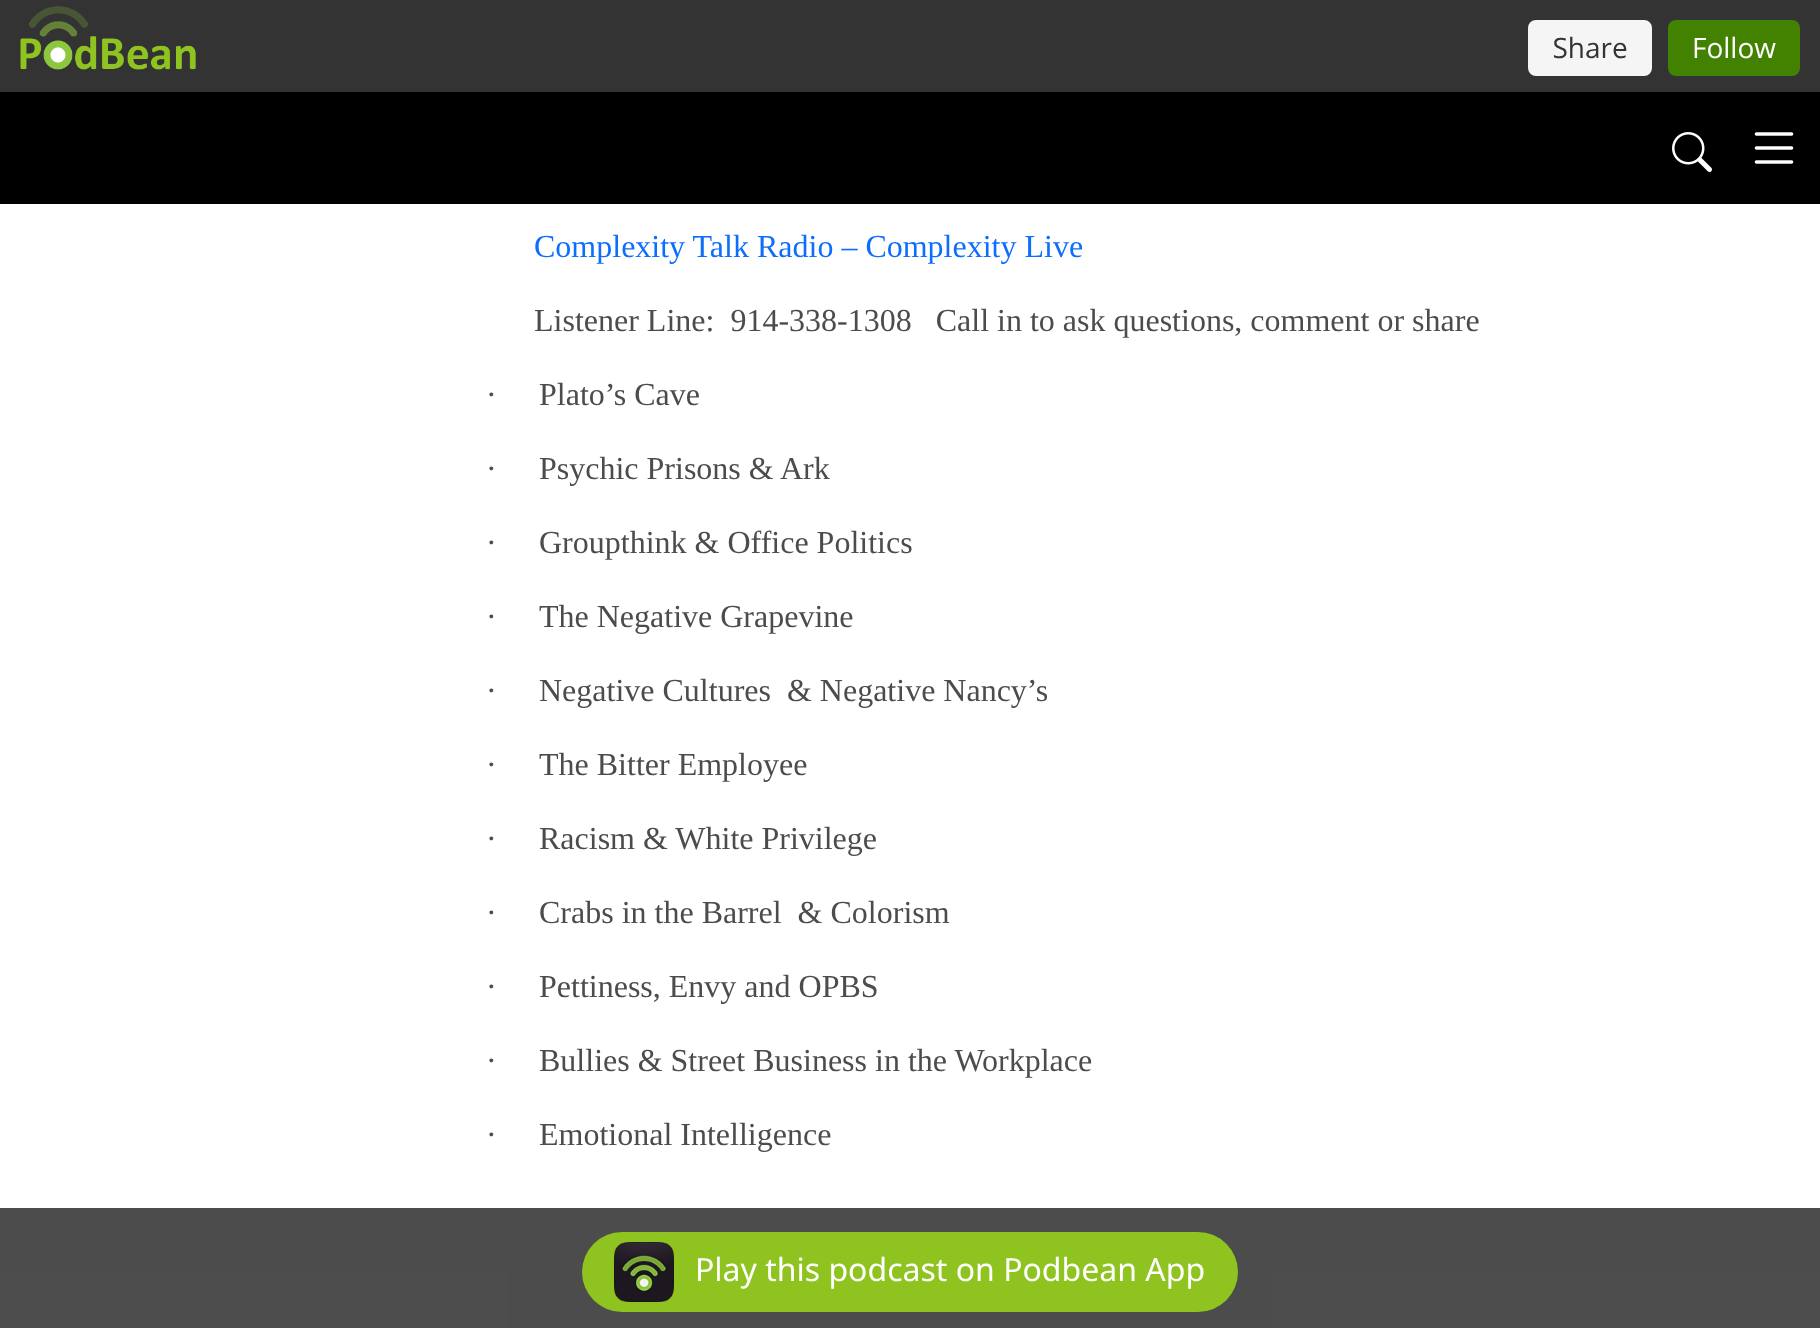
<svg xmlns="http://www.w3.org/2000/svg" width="1820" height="1328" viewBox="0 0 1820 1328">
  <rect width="100%" height="100%" fill="#ffffff"/>
  <rect x="0" y="0" width="1820" height="92" fill="#333333"/>
  <image x="20" y="6" width="1780" height="70" href="img1.png"/>
  <rect x="0" y="92" width="1820" height="112" fill="#000000"/>
  <image x="1672" y="132" width="40" height="40" href="img2.png"/>
  <image x="1754" y="132" width="40" height="32" href="img3.png"/>
  <text x="534" y="257" font-family="Liberation Serif" font-size="32" fill="#0d6efd">Complexity Talk Radio – Complexity Live</text>
  <text x="534" y="331" font-family="Liberation Serif" font-size="32" fill="#4c4c4c" xml:space="preserve">Listener Line:  914-338-1308   Call in to ask questions, comment or share</text>
  <text x="486" y="405" font-family="Liberation Serif" font-size="32" fill="#4c4c4c">·</text>
  <text x="539" y="405" font-family="Liberation Serif" font-size="32" fill="#4c4c4c">Plato’s Cave</text>
  <text x="486" y="479" font-family="Liberation Serif" font-size="32" fill="#4c4c4c">·</text>
  <text x="539" y="479" font-family="Liberation Serif" font-size="32" fill="#4c4c4c">Psychic Prisons &amp; Ark</text>
  <text x="486" y="553" font-family="Liberation Serif" font-size="32" fill="#4c4c4c">·</text>
  <text x="539" y="553" font-family="Liberation Serif" font-size="32" fill="#4c4c4c">Groupthink &amp; Office Politics</text>
  <text x="486" y="627" font-family="Liberation Serif" font-size="32" fill="#4c4c4c">·</text>
  <text x="539" y="627" font-family="Liberation Serif" font-size="32" fill="#4c4c4c">The Negative Grapevine</text>
  <text x="486" y="701" font-family="Liberation Serif" font-size="32" fill="#4c4c4c">·</text>
  <text x="539" y="701" font-family="Liberation Serif" font-size="32" fill="#4c4c4c" xml:space="preserve">Negative Cultures  &amp; Negative Nancy’s</text>
  <text x="486" y="775" font-family="Liberation Serif" font-size="32" fill="#4c4c4c">·</text>
  <text x="539" y="775" font-family="Liberation Serif" font-size="32" fill="#4c4c4c">The Bitter Employee</text>
  <text x="486" y="849" font-family="Liberation Serif" font-size="32" fill="#4c4c4c">·</text>
  <text x="539" y="849" font-family="Liberation Serif" font-size="32" fill="#4c4c4c">Racism &amp; White Privilege</text>
  <text x="486" y="923" font-family="Liberation Serif" font-size="32" fill="#4c4c4c">·</text>
  <text x="539" y="923" font-family="Liberation Serif" font-size="32" fill="#4c4c4c" xml:space="preserve">Crabs in the Barrel  &amp; Colorism</text>
  <text x="486" y="997" font-family="Liberation Serif" font-size="32" fill="#4c4c4c">·</text>
  <text x="539" y="997" font-family="Liberation Serif" font-size="32" fill="#4c4c4c">Pettiness, Envy and OPBS</text>
  <text x="486" y="1071" font-family="Liberation Serif" font-size="32" fill="#4c4c4c">·</text>
  <text x="539" y="1071" font-family="Liberation Serif" font-size="32" fill="#4c4c4c">Bullies &amp; Street Business in the Workplace</text>
  <text x="486" y="1145" font-family="Liberation Serif" font-size="32" fill="#4c4c4c">·</text>
  <text x="539" y="1145" font-family="Liberation Serif" font-size="32" fill="#4c4c4c">Emotional Intelligence</text>
  <rect x="0" y="1208" width="1820" height="120" fill="#000000" fill-opacity="0.7"/>
  <rect x="582" y="1232" width="656" height="80" rx="40" fill="#8fc31f"/>
  <image x="614" y="1242" width="60" height="60" href="img4.png"/>
  <text x="695" y="1281" font-family="Noto Sans" font-size="32" fill="#ffffff">Play this podcast on Podbean App</text>
</svg>
